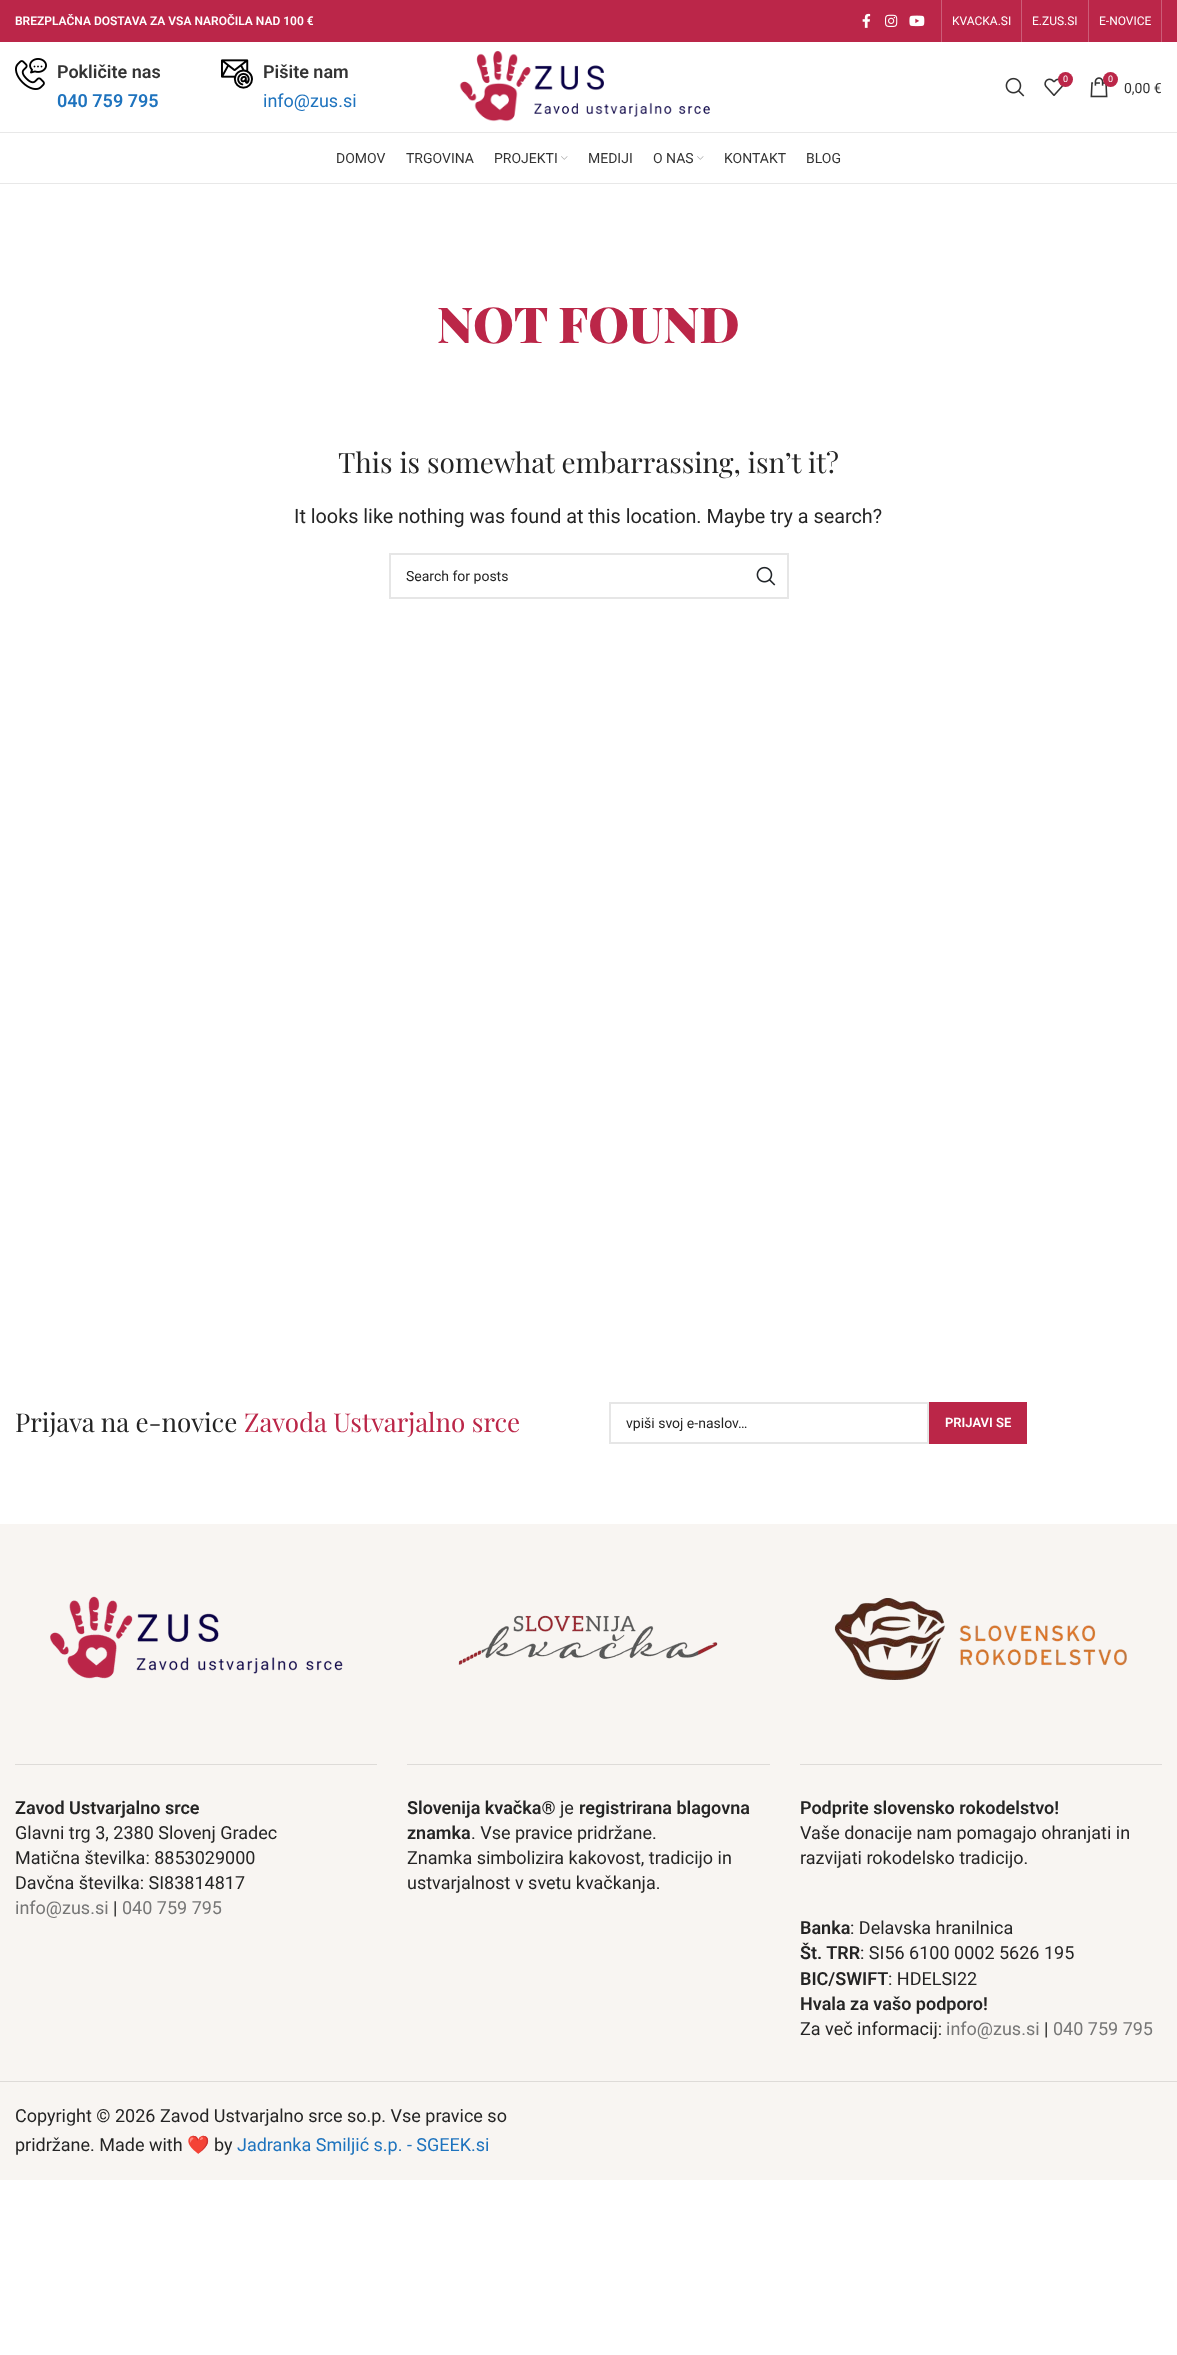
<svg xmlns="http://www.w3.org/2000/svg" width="1177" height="2355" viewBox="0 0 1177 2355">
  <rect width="100%" height="100%" fill="#ffffff"/>
  <rect x="0" y="0" width="1177" height="42" fill="#bb2649"/>
  <text x="15" y="25" font-family="Roboto" font-size="12" font-weight="600" fill="#ffffff">BREZPLAČNA DOSTAVA ZA VSA NAROČILA NAD 100 €</text>
  <image x="862" y="13" width="9" height="15" href="img1.png"/>
  <image x="885" y="14" width="13" height="13" href="img2.png"/>
  <image x="909" y="15" width="16" height="12" href="img3.png"/>
  <rect x="941" y="0" width="1" height="42" fill="#cc5c77"/>
  <text x="952" y="25" font-family="Roboto" font-size="12" fill="#ffffff">KVACKA.SI</text>
  <rect x="1021" y="0" width="1" height="42" fill="#cc5c77"/>
  <text x="1032" y="25" font-family="Roboto" font-size="12" fill="#ffffff">E.ZUS.SI</text>
  <rect x="1088" y="0" width="1" height="42" fill="#cc5c77"/>
  <text x="1099" y="25" font-family="Roboto" font-size="12" fill="#ffffff">E-NOVICE</text>
  <rect x="1161" y="0" width="1" height="42" fill="#cc5c77"/>
  <rect x="0" y="132" width="1177" height="1" fill="#e8e8e8"/>
  <image x="15" y="58" width="32" height="32" href="img4.png"/>
  <text x="57" y="78" font-family="Roboto" font-size="18" font-weight="600" fill="#333333">Pokličite nas</text>
  <text x="57" y="107" font-family="Roboto" font-size="18" font-weight="600" fill="#1e73be">040 759 795</text>
  <image x="221" y="59" width="32" height="30" href="img5.png"/>
  <text x="263" y="78" font-family="Roboto" font-size="18" font-weight="600" fill="#333333">Pišite nam</text>
  <text x="263" y="107" font-family="Roboto" font-size="18" fill="#1e73be">info@zus.si</text>
  <image x="459" y="50" width="251" height="72" href="img6.png"/>
  <image x="1005" y="77" width="20" height="20" href="img7.png"/>
  <image x="1044" y="78" width="20" height="18" href="img8.png"/>
  <circle cx="1065.5" cy="79.5" r="7.5" fill="#bb2648"/>
  <text x="1063" y="82" font-family="Roboto" font-size="9" fill="#ffffff">0</text>
  <image x="1090" y="77" width="18" height="21" href="img9.png"/>
  <circle cx="1110.5" cy="79.5" r="7.5" fill="#bb2648"/>
  <text x="1108" y="82" font-family="Roboto" font-size="9" fill="#ffffff">0</text>
  <text x="1124" y="93" font-family="Roboto" font-size="14" fill="#333333">0,00 €</text>
  <rect x="0" y="183" width="1177" height="1" fill="#e8e8e8"/>
  <text x="336" y="163" font-family="Roboto" font-size="14" fill="#333333">DOMOV</text>
  <text x="406" y="163" font-family="Roboto" font-size="14" fill="#333333">TRGOVINA</text>
  <text x="494" y="163" font-family="Roboto" font-size="14" fill="#333333">PROJEKTI</text>
  <image x="561" y="156" width="7" height="4" href="img10.png"/>
  <text x="588" y="163" font-family="Roboto" font-size="14" fill="#333333">MEDIJI</text>
  <text x="653" y="163" font-family="Roboto" font-size="14" fill="#333333">O NAS</text>
  <image x="697" y="156" width="7" height="4" href="img10.png"/>
  <text x="724" y="163" font-family="Roboto" font-size="14" fill="#333333">KONTAKT</text>
  <text x="806" y="163" font-family="Roboto" font-size="14" fill="#333333">BLOG</text>
  <text x="437" y="343" font-family="Playfair Display" font-size="49.5" font-weight="900" fill="#bb2648">NOT FOUND</text>
  <text x="338" y="473" font-family="Playfair Display" font-size="28" fill="#242424">This is somewhat embarrassing, isn’t it?</text>
  <text x="294" y="523" font-family="Roboto" font-size="19.8" fill="#242424">It looks like nothing was found at this location. Maybe try a search?</text>
  <rect x="390" y="554" width="398" height="44" fill="none" stroke="#e6e6e6" stroke-width="2"/>
  <text x="406" y="581" font-family="Roboto" font-size="14" fill="#242424">Search for posts</text>
  <image x="756" y="566" width="20" height="20" href="img11.png"/>
  <text x="15" y="1432" font-family="Playfair Display" font-size="26" fill="#242424">Prijava na e-novice</text>
  <text x="244" y="1432" font-family="Playfair Display" font-size="26" fill="#bb2648">Zavoda Ustvarjalno srce</text>
  <rect x="610" y="1403" width="318" height="40" fill="none" stroke="#e6e6e6" stroke-width="2"/>
  <text x="626" y="1428" font-family="Roboto" font-size="14" fill="#242424">vpiši svoj e-naslov…</text>
  <rect x="929" y="1402" width="98" height="42" fill="#bb2648"/>
  <text x="945" y="1427" font-family="Roboto" font-size="13" font-weight="600" fill="#ffffff">PRIJAVI SE</text>
  <rect x="0" y="1524" width="1177" height="656" fill="#f8f5f2"/>
  <rect x="15" y="1764" width="362" height="1" fill="#dedbd8"/>
  <image x="50" y="1596" width="293" height="83" href="img12.png"/>
  <text x="15" y="1814" font-family="Roboto" font-size="18" font-weight="600" fill="#242424">Zavod Ustvarjalno srce</text>
  <text x="15" y="1839" font-family="Roboto" font-size="18" fill="#242424">Glavni trg 3, 2380 Slovenj Gradec</text>
  <text x="15" y="1864" font-family="Roboto" font-size="18" fill="#242424">Matična številka: 8853029000</text>
  <text x="15" y="1889" font-family="Roboto" font-size="18" fill="#242424">Davčna številka: SI83814817</text>
  <text x="15" y="1914" font-family="Roboto" font-size="18" fill="#767676">info@zus.si</text>
  <text x="113" y="1914" font-family="Roboto" font-size="18" fill="#242424">|</text>
  <text x="122" y="1914" font-family="Roboto" font-size="18" fill="#767676">040 759 795</text>
  <rect x="407" y="1764" width="363" height="1" fill="#dedbd8"/>
  <image x="458" y="1615" width="260" height="50" href="img13.png"/>
  <text x="407" y="1814" font-family="Roboto" font-size="18" font-weight="600" fill="#242424">Slovenija kvačka®</text>
  <text x="560" y="1814" font-family="Roboto" font-size="18" fill="#242424">je</text>
  <text x="579" y="1814" font-family="Roboto" font-size="18" font-weight="600" fill="#242424">registrirana blagovna</text>
  <text x="407" y="1839" font-family="Roboto" font-size="18" font-weight="600" fill="#242424">znamka</text>
  <text x="471" y="1839" font-family="Roboto" font-size="18" fill="#242424">. Vse pravice pridržane.</text>
  <text x="407" y="1864" font-family="Roboto" font-size="18" fill="#242424">Znamka simbolizira kakovost, tradicijo in</text>
  <text x="407" y="1889" font-family="Roboto" font-size="18" fill="#242424">ustvarjalnost v svetu kvačkanja.</text>
  <rect x="800" y="1764" width="362" height="1" fill="#dedbd8"/>
  <image x="834" y="1598" width="293" height="82" href="img14.png"/>
  <text x="800" y="1814" font-family="Roboto" font-size="18" font-weight="600" fill="#242424">Podprite slovensko rokodelstvo!</text>
  <text x="800" y="1839" font-family="Roboto" font-size="18" fill="#242424">Vaše donacije nam pomagajo ohranjati in</text>
  <text x="800" y="1864" font-family="Roboto" font-size="18" fill="#242424">razvijati rokodelsko tradicijo.</text>
  <text x="800" y="1934" font-family="Roboto" font-size="18" font-weight="600" fill="#242424">Banka</text>
  <text x="850" y="1934" font-family="Roboto" font-size="18" fill="#242424">: Delavska hranilnica</text>
  <text x="800" y="1959" font-family="Roboto" font-size="18" font-weight="600" fill="#242424">Št. TRR</text>
  <text x="860" y="1959" font-family="Roboto" font-size="18" fill="#242424">: SI56 6100 0002 5626 195</text>
  <text x="800" y="1985" font-family="Roboto" font-size="18" font-weight="600" fill="#242424">BIC/SWIFT</text>
  <text x="888" y="1985" font-family="Roboto" font-size="18" fill="#242424">: HDELSI22</text>
  <text x="800" y="2010" font-family="Roboto" font-size="18" font-weight="600" fill="#242424">Hvala za vašo podporo!</text>
  <text x="800" y="2035" font-family="Roboto" font-size="18" fill="#242424">Za več informacij:</text>
  <text x="946" y="2035" font-family="Roboto" font-size="18" fill="#767676">info@zus.si</text>
  <text x="1044" y="2035" font-family="Roboto" font-size="18" fill="#242424">|</text>
  <text x="1053" y="2035" font-family="Roboto" font-size="18" fill="#767676">040 759 795</text>
  <rect x="0" y="2081" width="1177" height="1" fill="#dedbd8"/>
  <text x="15" y="2122" font-family="Roboto" font-size="18" fill="#242424">Copyright © 2026 Zavod Ustvarjalno srce so.p. Vse pravice so</text>
  <text x="15" y="2151" font-family="Roboto" font-size="18" fill="#242424">pridržane. Made with</text>
  <text x="187" y="2151" font-family="Noto Color Emoji" font-size="18" fill="#242424">❤️</text>
  <text x="214" y="2151" font-family="Roboto" font-size="18" fill="#242424">by</text>
  <text x="237" y="2151" font-family="Roboto" font-size="18" fill="#1e73be">Jadranka Smiljić s.p. - SGEEK.si</text>
</svg>
